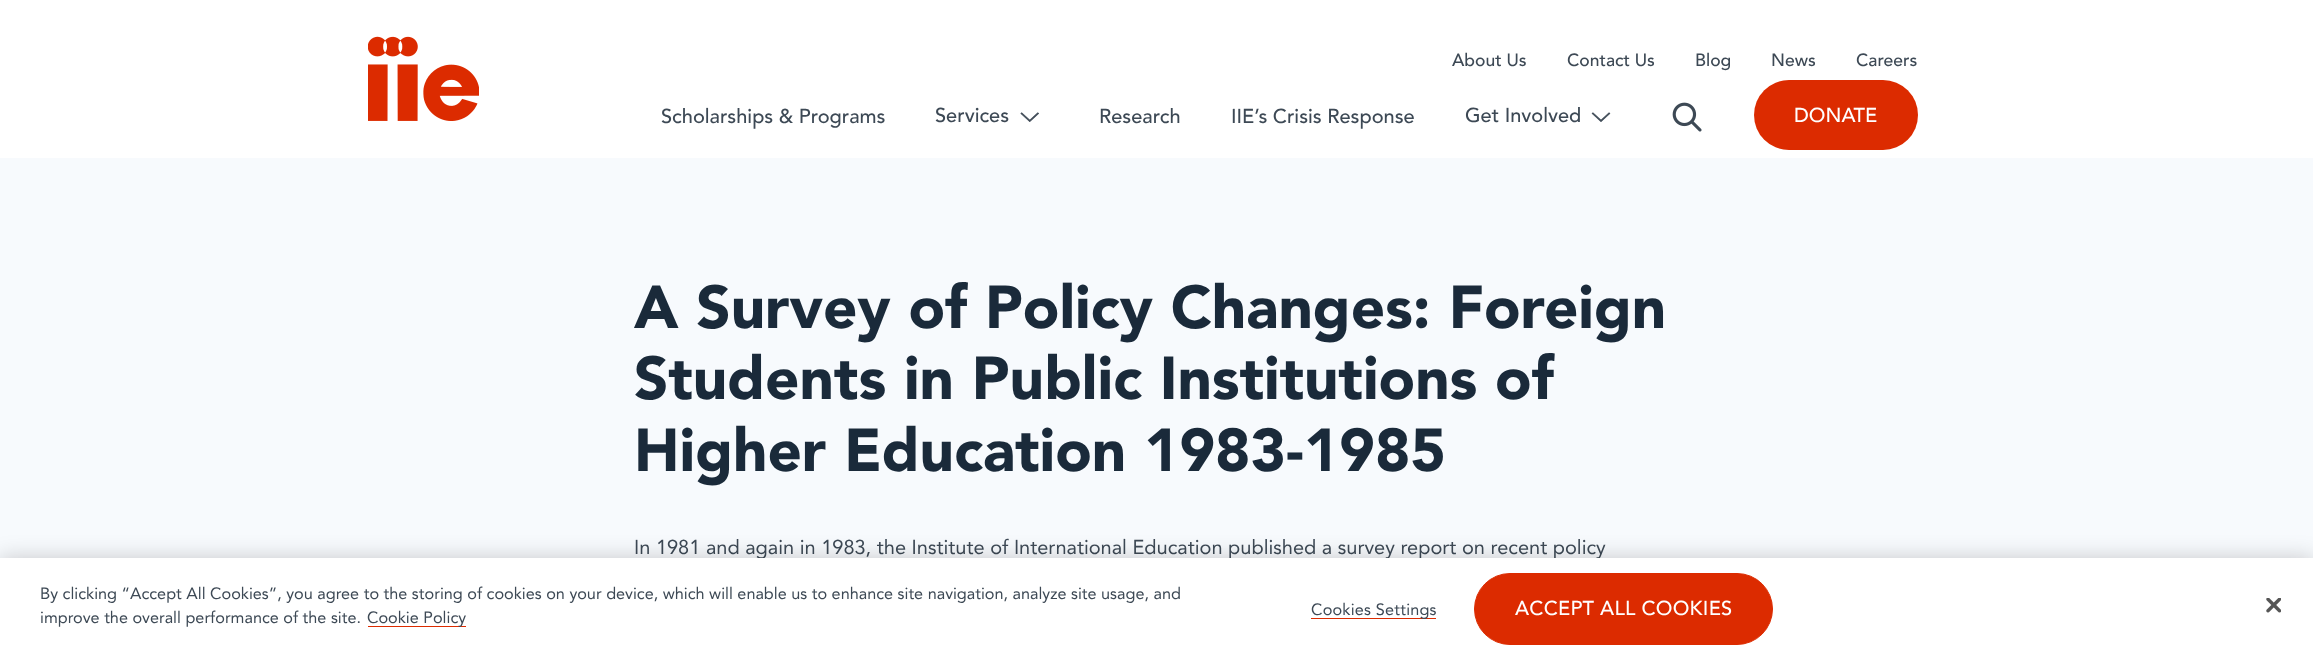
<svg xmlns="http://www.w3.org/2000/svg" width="2313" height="659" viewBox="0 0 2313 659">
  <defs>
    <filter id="blur1" x="-50%" y="-200%" width="200%" height="500%"><feGaussianBlur stdDeviation="11"/></filter>
  </defs>
  <rect width="100%" height="100%" fill="#f7fafd"/>
  <rect x="0" y="0" width="2313" height="158" fill="#ffffff"/>
  <image x="368" y="36" width="111" height="85" href="img1.png"/>
  <text x="1452" y="66" font-family="Avenir" font-size="17.5" font-weight="500" fill="#3d4955">About Us</text>
  <text x="1567" y="66" font-family="Avenir" font-size="17.5" font-weight="500" fill="#3d4955">Contact Us</text>
  <text x="1695" y="66" font-family="Avenir" font-size="17.5" font-weight="500" fill="#3d4955">Blog</text>
  <text x="1771" y="66" font-family="Avenir" font-size="17.5" font-weight="500" fill="#3d4955">News</text>
  <text x="1856" y="66" font-family="Avenir" font-size="17.5" font-weight="500" fill="#3d4955">Careers</text>
  <text x="661" y="123" font-family="Avenir" font-size="20" font-weight="500" fill="#3d4955">Scholarships &amp; Programs</text>
  <text x="935" y="122" font-family="Avenir" font-size="20" font-weight="500" fill="#3d4955">Services</text>
  <image x="1020" y="112" width="19" height="10" href="img2.png"/>
  <text x="1099" y="123" font-family="Avenir" font-size="20" font-weight="500" fill="#3d4955">Research</text>
  <text x="1231" y="123" font-family="Avenir" font-size="20" font-weight="500" fill="#3d4955">IIE’s Crisis Response</text>
  <text x="1465" y="122" font-family="Avenir" font-size="20" font-weight="500" fill="#3d4955">Get Involved</text>
  <image x="1591" y="112" width="20" height="10" href="img3.png"/>
  <image x="1672" y="102" width="30" height="30" href="img4.png"/>
  <rect x="1754" y="80" width="164" height="70" rx="35" fill="#dc2b00"/>
  <text x="1794" y="122" font-family="Avenir" font-size="20" font-weight="500" fill="#ffffff">DONATE</text>
  <text x="634" y="328" font-family="Avenir" font-size="60" font-weight="900" fill="#1a2a3a">A Survey of Policy Changes: Foreign</text>
  <text x="634" y="399" font-family="Avenir" font-size="60" font-weight="900" fill="#1a2a3a">Students in Public Institutions of</text>
  <text x="634" y="471" font-family="Avenir" font-size="60" font-weight="900" fill="#1a2a3a">Higher Education 1983-1985</text>
  <text x="634" y="554" font-family="Avenir" font-size="20" fill="#3d4955">In 1981 and again in 1983, the Institute of International Education published a survey report on recent policy</text>
  <rect x="0" y="558" width="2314" height="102" fill="#000000" fill-opacity="0.2" filter="url(#blur1)"/>
  <rect x="0" y="558" width="2313" height="101" fill="#ffffff"/>
  <text x="40" y="599" font-family="Avenir" font-size="16.25" fill="#3d4955">By clicking “Accept All Cookies”, you agree to the storing of cookies on your device, which will enable us to enhance site navigation, analyze site usage, and</text>
  <text x="40" y="623" font-family="Avenir" font-size="16.25" fill="#3d4955">improve the overall performance of the site.</text>
  <rect x="368" y="626" width="98" height="1" fill="#dc2b00"/>
  <text x="367" y="623" font-family="Avenir" font-size="16.25" fill="#3d4955">Cookie Policy</text>
  <rect x="1311" y="618" width="125" height="1" fill="#dc2b00"/>
  <text x="1311" y="615" font-family="Avenir" font-size="16.25" letter-spacing="0.2" fill="#3d4955">Cookies Settings</text>
  <rect x="1474.5" y="573.5" width="298" height="71" rx="35.5" fill="#dc2b00" stroke="#dc2b00"/>
  <text x="1515" y="615" font-family="Avenir" font-size="20" font-weight="500" letter-spacing="0.25" fill="#ffffff">ACCEPT ALL COOKIES</text>
  <image x="2266" y="598" width="15" height="15" href="img5.png"/>
</svg>
